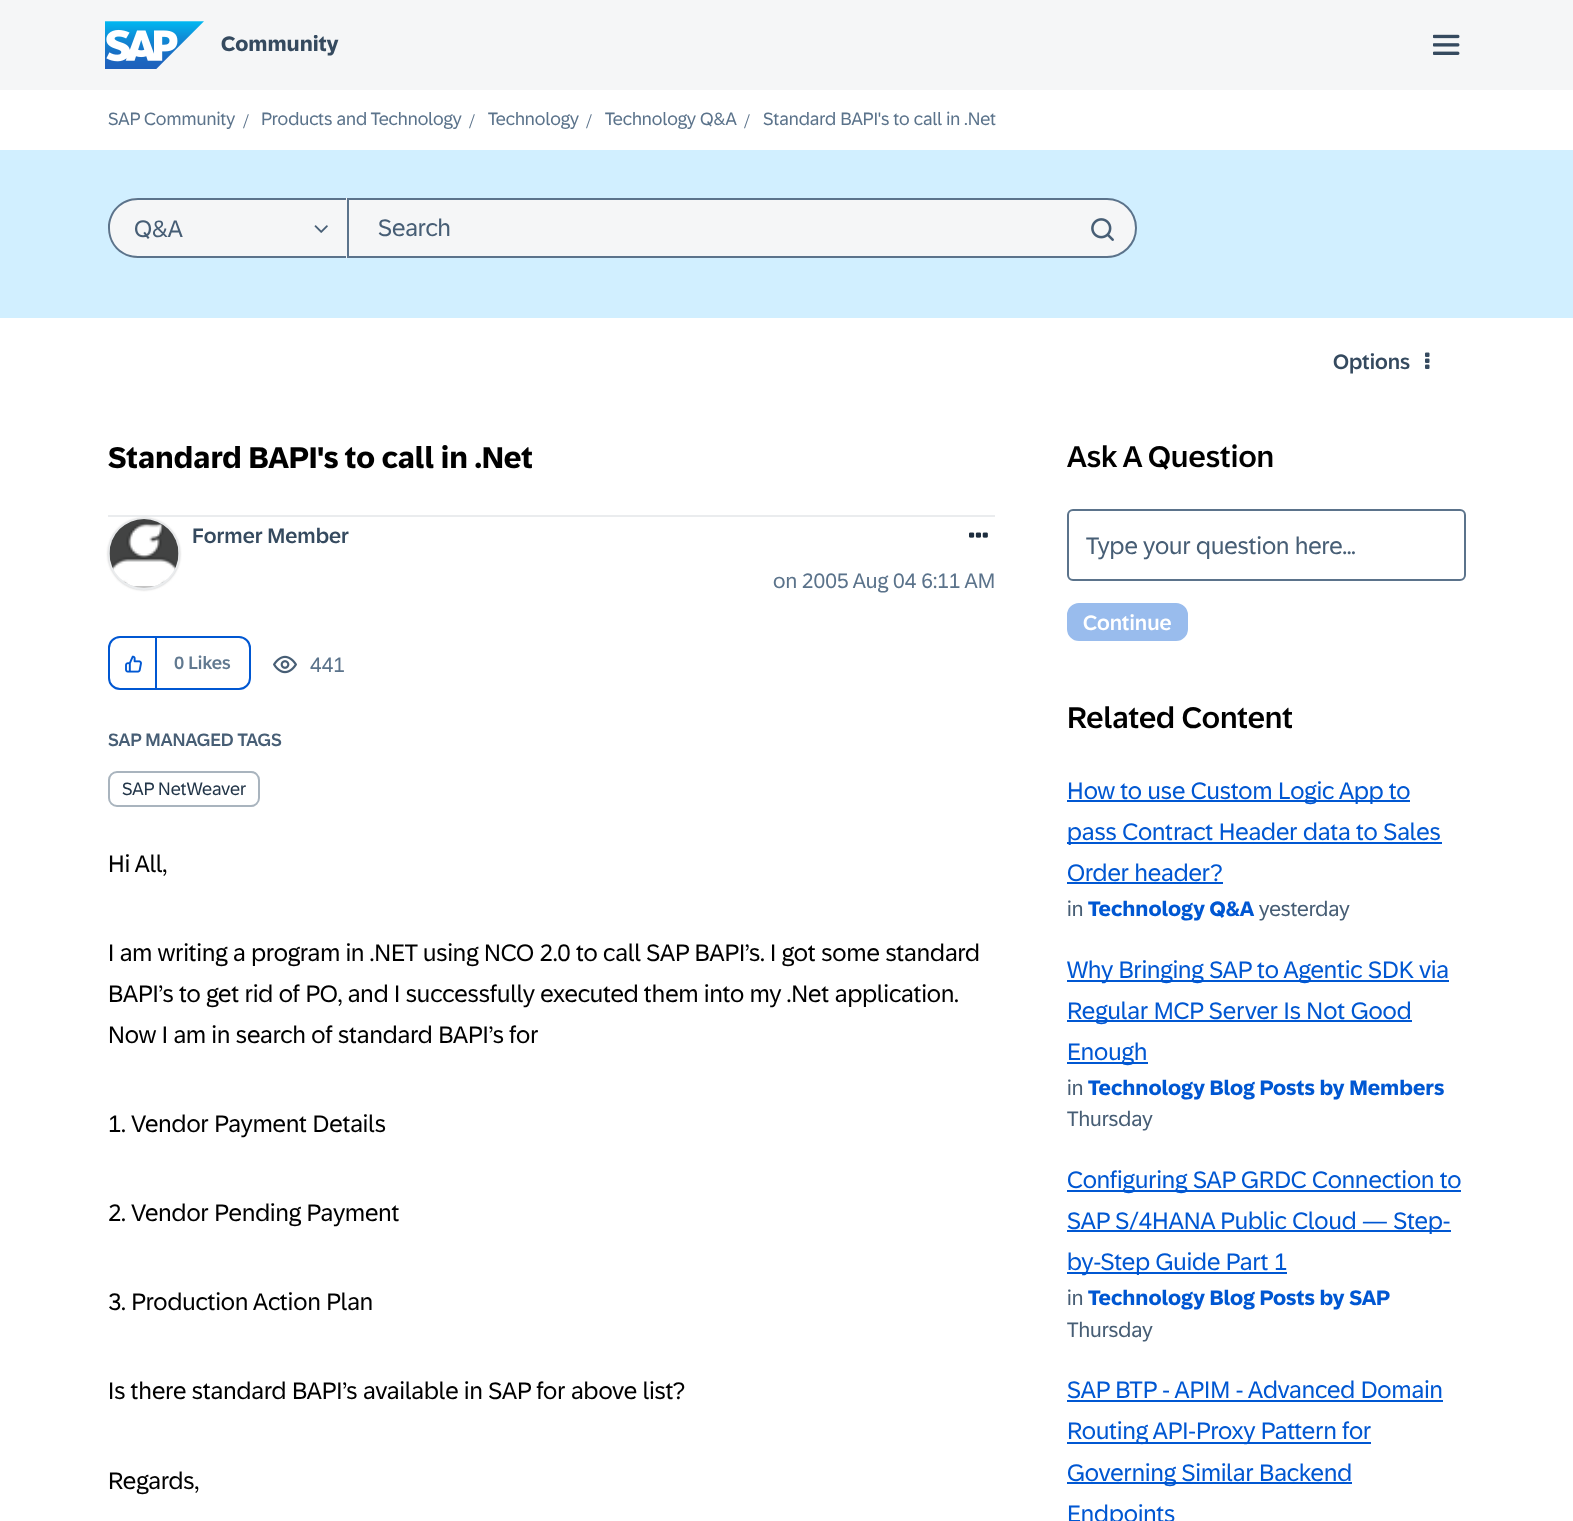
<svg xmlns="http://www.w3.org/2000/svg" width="1573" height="1521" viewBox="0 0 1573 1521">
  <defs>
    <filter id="blur1" x="-50%" y="-200%" width="200%" height="500%"><feGaussianBlur stdDeviation="1"/></filter>
  </defs>
  <rect width="100%" height="100%" fill="#ffffff"/>
  <rect x="0" y="0" width="1573" height="90" fill="#f5f6f7"/>
  <image x="105" y="21" width="99" height="48" href="img1.png"/>
  <text x="221" y="51" font-family="'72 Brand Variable'" font-size="21" font-weight="bold" fill="#354a5f">Community</text>
  <image x="1433" y="34" width="27" height="21" href="img2.png"/>
  <text x="108" y="125" font-family="'72 Brand Variable'" font-size="18" fill="#5b738b">SAP Community</text>
  <text x="243" y="128" font-family="Liberation Serif" font-size="21" fill="#5b738b">/</text>
  <text x="261" y="125" font-family="'72 Brand Variable'" font-size="18" fill="#5b738b">Products and Technology</text>
  <text x="469" y="128" font-family="Liberation Serif" font-size="21" fill="#5b738b">/</text>
  <text x="488" y="125" font-family="'72 Brand Variable'" font-size="18" fill="#5b738b">Technology</text>
  <text x="586" y="128" font-family="Liberation Serif" font-size="21" fill="#5b738b">/</text>
  <text x="605" y="125" font-family="'72 Brand Variable'" font-size="18" fill="#5b738b">Technology Q&amp;A</text>
  <text x="744" y="128" font-family="Liberation Serif" font-size="21" fill="#5b738b">/</text>
  <text x="763" y="125" font-family="'72 Brand Variable'" font-size="18" fill="#5b738b">Standard BAPI's to call in .Net</text>
  <rect x="0" y="150" width="1573" height="168" fill="#d1efff"/>
  <path d="M138 198H347V258H138C121.5 258 108 244.5 108 228C108 211.5 121.5 198 138 198Z" fill="#f5f6f7"/>
  <path d="M138 198H346V258H138C121 258 108 245 108 228C108 211 121 198 138 198ZM138 200H346V256H138C122 256 110 244 110 228C110 212 122 200 138 200Z" fill="#5b738b" fill-rule="evenodd"/>
  <text x="134" y="237" font-family="'72 Brand Variable'" font-size="24" fill="#475e75">Q&amp;A</text>
  <image x="314" y="225" width="14" height="8" href="img3.png"/>
  <path d="M348 199H1107C1123 199 1136 212 1136 228C1136 244 1123 257 1107 257H348Z" fill="#f5f6f7" stroke="#5b738b" stroke-width="2"/>
  <text x="378" y="236" font-family="'72 Brand Variable'" font-size="24" fill="#475e75">Search</text>
  <image x="1091" y="218" width="23" height="23" href="img4.png"/>
  <text x="1333" y="369" font-family="'72 Brand Variable'" font-size="21" font-weight="500" fill="#354a5f">Options</text>
  <image x="1425" y="352" width="5" height="17" href="img5.png"/>
  <rect x="108" y="515" width="887" height="2" fill="#eaecee"/>
  <text x="108" y="468" font-family="'72 Brand Variable'" font-size="30" font-weight="bold" fill="#000000">Standard BAPI's to call in .Net</text>
  <rect x="108" y="518" width="72" height="72" rx="36" fill="#c4c4c4" filter="url(#blur1)"/>
  <circle cx="144" cy="554" r="35" fill="none" stroke="#eaecee" stroke-width="2"/>
  <image x="109" y="519" width="70" height="67" href="img6.png"/>
  <text x="192" y="543" font-family="'72 Brand Variable'" font-size="21" font-weight="500" fill="#354a5f">Former Member</text>
  <image x="969" y="532" width="19" height="6" href="img7.png"/>
  <text x="773" y="588" font-family="'72 Brand Variable'" font-size="21" fill="#5b738b">on 2005 Aug 04 6:11 AM</text>
  <rect x="109" y="637" width="141" height="52" rx="11" fill="none" stroke="#0057d2" stroke-width="2"/>
  <rect x="155" y="638" width="2" height="52" fill="#0057d2"/>
  <image x="125" y="655" width="17" height="18" href="img8.png"/>
  <text x="174" y="669" font-family="'72 Brand Variable'" font-size="18" font-weight="500" fill="#617990">0 Likes</text>
  <image x="273" y="655" width="24" height="19" href="img9.png"/>
  <text x="310" y="672" font-family="'72 Brand Variable'" font-size="21" fill="#5b738b">441</text>
  <text x="108" y="746" font-family="'72 Brand Variable'" font-size="18" font-weight="500" fill="#475e75">SAP MANAGED TAGS</text>
  <rect x="109" y="772" width="150" height="34" rx="8" fill="none" stroke="#a9b4be" stroke-width="2"/>
  <text x="122" y="795" font-family="'72 Brand Variable'" font-size="18" fill="#223548">SAP NetWeaver</text>
  <text x="108" y="872" font-family="'72 Brand Variable'" font-size="24" fill="#000000">Hi All,</text>
  <text x="108" y="961" font-family="'72 Brand Variable'" font-size="24" fill="#000000">I am writing a program in .NET using NCO 2.0 to call SAP BAPI’s. I got some standard</text>
  <text x="108" y="1002" font-family="'72 Brand Variable'" font-size="24" fill="#000000">BAPI’s to get rid of PO, and I successfully executed them into my .Net application.</text>
  <text x="108" y="1043" font-family="'72 Brand Variable'" font-size="24" fill="#000000">Now I am in search of standard BAPI’s for</text>
  <text x="108" y="1132" font-family="'72 Brand Variable'" font-size="24" fill="#000000">1. Vendor Payment Details</text>
  <text x="108" y="1221" font-family="'72 Brand Variable'" font-size="24" fill="#000000">2. Vendor Pending Payment</text>
  <text x="108" y="1310" font-family="'72 Brand Variable'" font-size="24" fill="#000000">3. Production Action Plan</text>
  <text x="108" y="1399" font-family="'72 Brand Variable'" font-size="24" fill="#000000">Is there standard BAPI’s available in SAP for above list?</text>
  <text x="108" y="1489" font-family="'72 Brand Variable'" font-size="24" fill="#000000">Regards,</text>
  <text x="1067" y="467" font-family="'72 Brand Variable'" font-size="30" font-weight="500" fill="#000000">Ask A Question</text>
  <rect x="1068" y="510" width="397" height="70" rx="5" fill="none" stroke="#5b738b" stroke-width="2"/>
  <text x="1086" y="554" font-family="'72 Brand Variable'" font-size="24" fill="#475e75">Type your question here...</text>
  <rect x="1068" y="604" width="119" height="36" rx="11" fill="#99bced" stroke="#99bced" stroke-width="2"/>
  <text x="1083" y="630" font-family="'72 Brand Variable'" font-size="21" font-weight="500" fill="#ffffff">Continue</text>
  <text x="1067" y="728" font-family="'72 Brand Variable'" font-size="30" font-weight="500" fill="#000000">Related Content</text>
  <rect x="1067" y="800" width="343" height="2" fill="#0057d2"/>
  <text x="1067" y="799" font-family="'72 Brand Variable'" font-size="24" fill="#0057d2">How to use Custom Logic App to</text>
  <rect x="1067" y="842" width="375" height="2" fill="#0057d2"/>
  <text x="1067" y="840" font-family="'72 Brand Variable'" font-size="24" fill="#0057d2">pass Contract Header data to Sales</text>
  <text x="1067" y="881" font-family="'72 Brand Variable'" font-size="24" fill="#0057d2">Order header?</text>
  <rect x="1067" y="882" width="156" height="2" fill="#0057d2"/>
  <text x="1067" y="916" font-family="'72 Brand Variable'" font-size="21" fill="#475e75">in</text>
  <text x="1088" y="916" font-family="'72 Brand Variable'" font-size="21" font-weight="bold" fill="#0057d2">Technology Q&amp;A</text>
  <text x="1259" y="916" font-family="'72 Brand Variable'" font-size="21" fill="#475e75">yesterday</text>
  <rect x="1067" y="980" width="382" height="2" fill="#0057d2"/>
  <text x="1067" y="978" font-family="'72 Brand Variable'" font-size="24" fill="#0057d2">Why Bringing SAP to Agentic SDK via</text>
  <rect x="1067" y="1020" width="345" height="2" fill="#0057d2"/>
  <text x="1067" y="1019" font-family="'72 Brand Variable'" font-size="24" fill="#0057d2">Regular MCP Server Is Not Good</text>
  <rect x="1067" y="1062" width="81" height="2" fill="#0057d2"/>
  <text x="1067" y="1060" font-family="'72 Brand Variable'" font-size="24" fill="#0057d2">Enough</text>
  <text x="1067" y="1095" font-family="'72 Brand Variable'" font-size="21" fill="#475e75">in</text>
  <text x="1088" y="1095" font-family="'72 Brand Variable'" font-size="21" font-weight="bold" fill="#0057d2">Technology Blog Posts by Members</text>
  <text x="1067" y="1126" font-family="'72 Brand Variable'" font-size="21" fill="#475e75">Thursday</text>
  <rect x="1067" y="1190" width="394" height="2" fill="#0057d2"/>
  <text x="1067" y="1188" font-family="'72 Brand Variable'" font-size="24" fill="#0057d2">Configuring SAP GRDC Connection to</text>
  <rect x="1067" y="1230" width="384" height="2" fill="#0057d2"/>
  <text x="1067" y="1229" font-family="'72 Brand Variable'" font-size="24" fill="#0057d2">SAP S/4HANA Public Cloud — Step-</text>
  <rect x="1067" y="1272" width="220" height="2" fill="#0057d2"/>
  <text x="1067" y="1270" font-family="'72 Brand Variable'" font-size="24" fill="#0057d2">by-Step Guide Part 1</text>
  <text x="1067" y="1305" font-family="'72 Brand Variable'" font-size="21" fill="#475e75">in</text>
  <text x="1088" y="1305" font-family="'72 Brand Variable'" font-size="21" font-weight="bold" fill="#0057d2">Technology Blog Posts by SAP</text>
  <text x="1067" y="1337" font-family="'72 Brand Variable'" font-size="21" fill="#475e75">Thursday</text>
  <text x="1067" y="1398" font-family="'72 Brand Variable'" font-size="24" fill="#0057d2">SAP BTP - APIM -</text>
  <rect x="1067" y="1400" width="376" height="2" fill="#0057d2"/>
  <text x="1248" y="1398" font-family="'72 Brand Variable'" font-size="24" fill="#0057d2">Advanced Domain</text>
  <rect x="1067" y="1442" width="304" height="2" fill="#0057d2"/>
  <text x="1067" y="1439" font-family="'72 Brand Variable'" font-size="24" fill="#0057d2">Routing API-Proxy Pattern for</text>
  <rect x="1067" y="1482" width="285" height="2" fill="#0057d2"/>
  <text x="1067" y="1481" font-family="'72 Brand Variable'" font-size="24" fill="#0057d2">Governing Similar Backend</text>
  <text x="1067" y="1522" font-family="'72 Brand Variable'" font-size="24" fill="#0057d2">Endpoints</text>
</svg>
